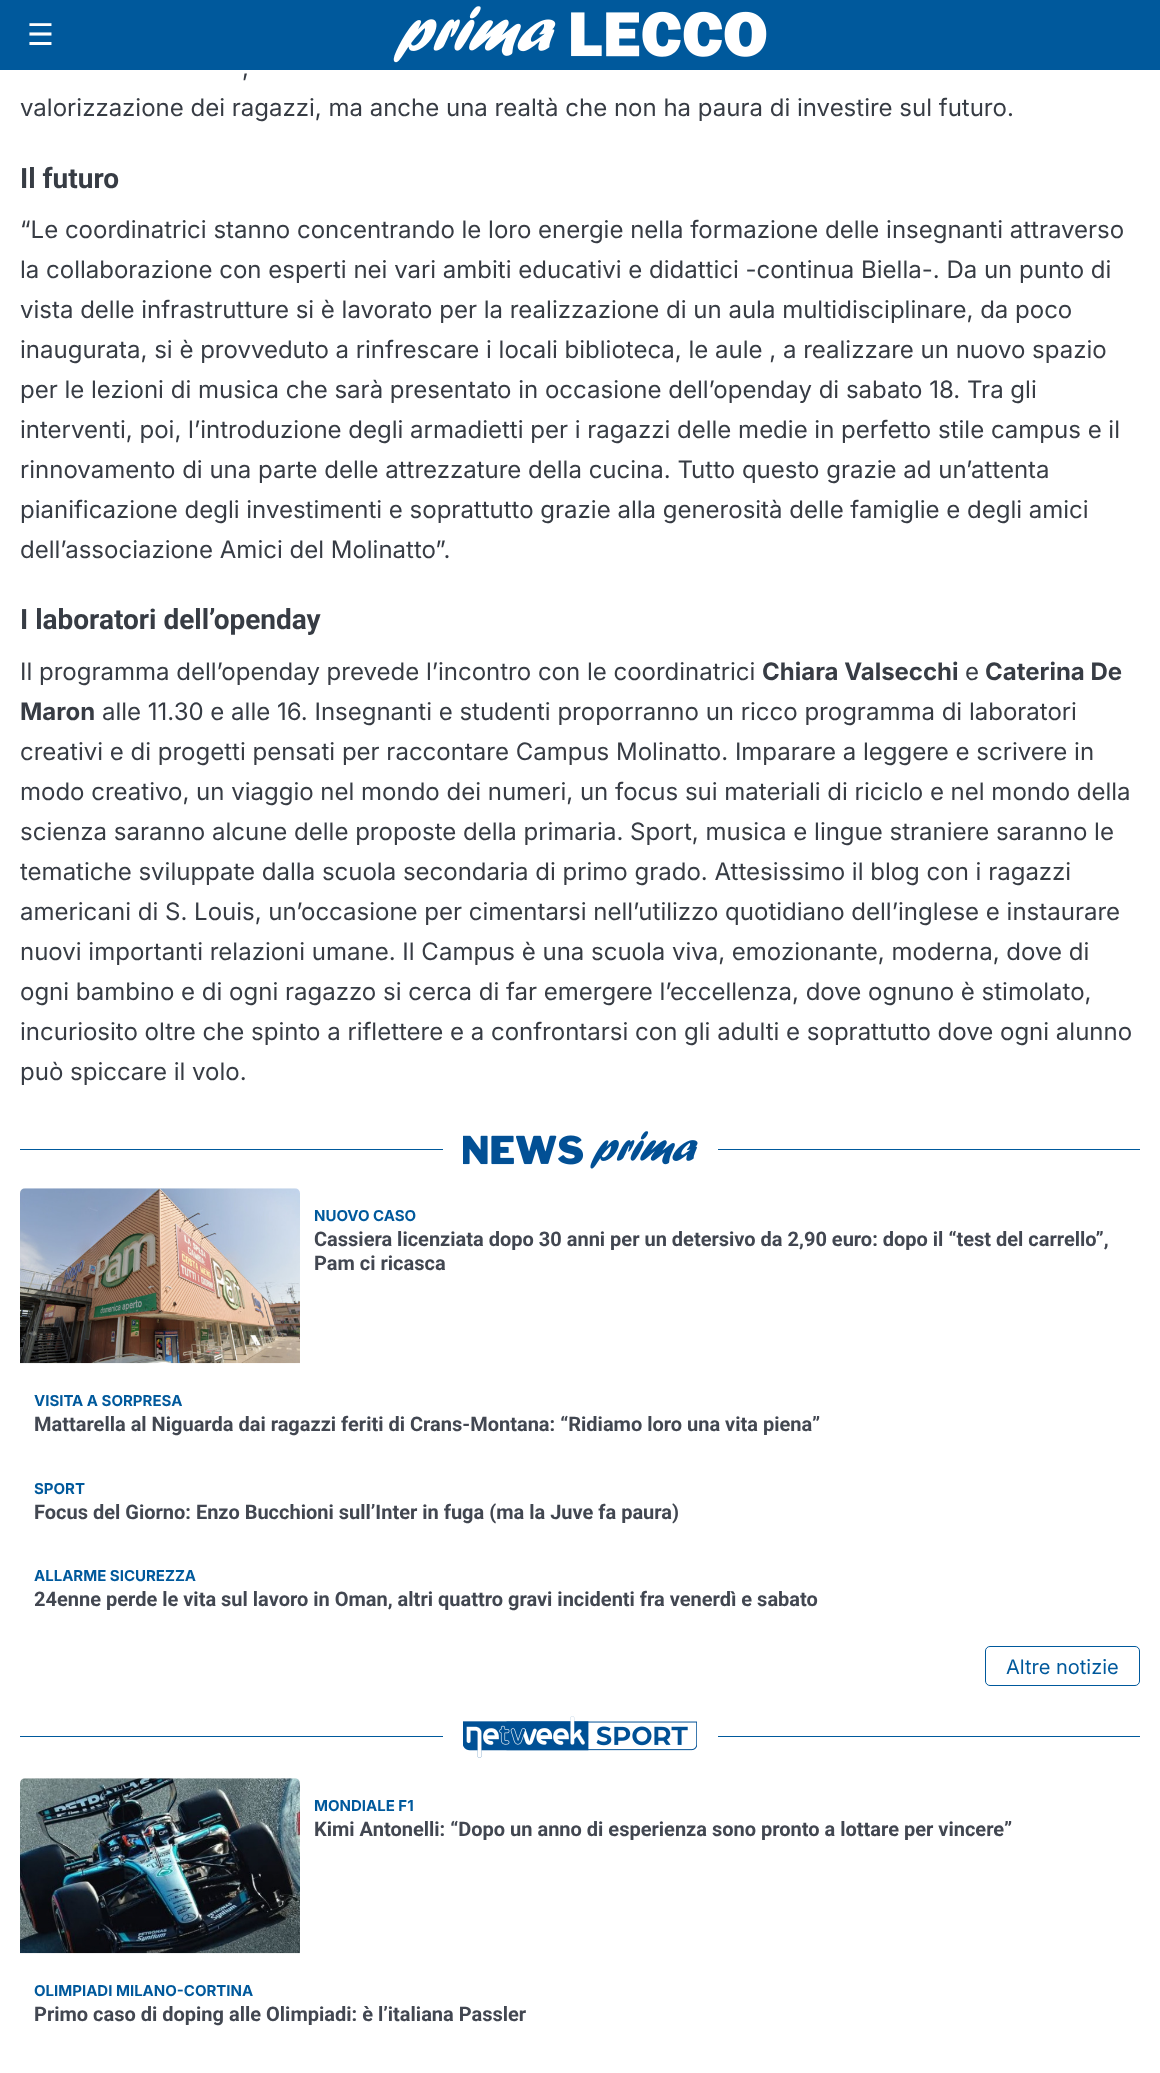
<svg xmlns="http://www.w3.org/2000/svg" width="1160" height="2073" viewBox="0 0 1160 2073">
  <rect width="100%" height="100%" fill="#ffffff"/>
  <rect x="0" y="0" width="1160" height="70" fill="#00599c"/>
  <text x="27" y="45" font-family="DejaVu Sans" font-size="30" fill="#ffffff">☰</text>
  <image x="393" y="6" width="374" height="57" href="img1.png"/>
  <text x="242" y="76" font-family="Inter" font-size="24" fill="#373c44">,</text>
  <text x="20" y="116" font-family="Inter" font-size="24" fill="#373c44">valorizzazione dei ragazzi, ma anche una realtà che non ha paura di investire sul futuro.</text>
  <text x="20" y="188" font-family="Roboto" font-size="28" font-weight="bold" fill="#373c44">Il futuro</text>
  <text x="20" y="238" font-family="Inter" font-size="24" fill="#373c44">“Le coordinatrici stanno concentrando le loro energie nella formazione delle insegnanti attraverso</text>
  <text x="20" y="278" font-family="Inter" font-size="24" fill="#373c44">la collaborazione con esperti nei vari ambiti educativi e didattici -continua Biella-. Da un punto di</text>
  <text x="20" y="318" font-family="Inter" font-size="24" fill="#373c44">vista delle infrastrutture si è lavorato per la realizzazione di un aula multidisciplinare, da poco</text>
  <text x="20" y="358" font-family="Inter" font-size="24" fill="#373c44">inaugurata, si è provveduto a rinfrescare i locali biblioteca, le aule , a realizzare un nuovo spazio</text>
  <text x="20" y="398" font-family="Inter" font-size="24" fill="#373c44">per le lezioni di musica che sarà presentato in occasione dell’openday di sabato 18. Tra gli</text>
  <text x="20" y="438" font-family="Inter" font-size="24" fill="#373c44">interventi, poi, l’introduzione degli armadietti per i ragazzi delle medie in perfetto stile campus e il</text>
  <text x="20" y="478" font-family="Inter" font-size="24" fill="#373c44">rinnovamento di una parte delle attrezzature della cucina. Tutto questo grazie ad un’attenta</text>
  <text x="20" y="518" font-family="Inter" font-size="24" fill="#373c44">pianificazione degli investimenti e soprattutto grazie alla generosità delle famiglie e degli amici</text>
  <text x="20" y="558" font-family="Inter" font-size="24" fill="#373c44">dell’associazione Amici del Molinatto”.</text>
  <text x="20" y="629" font-family="Roboto" font-size="28" font-weight="bold" fill="#373c44">I laboratori dell’openday</text>
  <text x="20" y="680" font-family="Inter" font-size="24" fill="#373c44">Il programma dell’openday prevede l’incontro con le coordinatrici</text>
  <text x="762" y="680" font-family="Inter" font-size="24" font-weight="bold" fill="#373c44">Chiara Valsecchi</text>
  <text x="965" y="680" font-family="Inter" font-size="24" fill="#373c44">e</text>
  <text x="985" y="680" font-family="Inter" font-size="24" font-weight="bold" fill="#373c44">Caterina De</text>
  <text x="20" y="720" font-family="Inter" font-size="24" font-weight="bold" fill="#373c44">Maron</text>
  <text x="102" y="720" font-family="Inter" font-size="24" fill="#373c44">alle 11.30 e alle 16. Insegnanti e studenti proporranno un ricco programma di laboratori</text>
  <text x="20" y="760" font-family="Inter" font-size="24" fill="#373c44">creativi e di progetti pensati per raccontare Campus Molinatto. Imparare a leggere e scrivere in</text>
  <text x="20" y="800" font-family="Inter" font-size="24" fill="#373c44">modo creativo, un viaggio nel mondo dei numeri, un focus sui materiali di riciclo e nel mondo della</text>
  <text x="20" y="840" font-family="Inter" font-size="24" fill="#373c44">scienza saranno alcune delle proposte della primaria. Sport, musica e lingue straniere saranno le</text>
  <text x="20" y="880" font-family="Inter" font-size="24" fill="#373c44">tematiche sviluppate dalla scuola secondaria di primo grado. Attesissimo il blog con i ragazzi</text>
  <text x="20" y="920" font-family="Inter" font-size="24" fill="#373c44">americani di S. Louis, un’occasione per cimentarsi nell’utilizzo quotidiano dell’inglese e instaurare</text>
  <text x="20" y="960" font-family="Inter" font-size="24" fill="#373c44">nuovi importanti relazioni umane. Il Campus è una scuola viva, emozionante, moderna, dove di</text>
  <text x="20" y="1000" font-family="Inter" font-size="24" fill="#373c44">ogni bambino e di ogni ragazzo si cerca di far emergere l’eccellenza, dove ognuno è stimolato,</text>
  <text x="20" y="1040" font-family="Inter" font-size="24" fill="#373c44">incuriosito oltre che spinto a riflettere e a confrontarsi con gli adulti e soprattutto dove ogni alunno</text>
  <text x="20" y="1080" font-family="Inter" font-size="24" fill="#373c44">può spiccare il volo.</text>
  <rect x="20" y="1149" width="1120" height="1" fill="#00599c"/>
  <rect x="443" y="1149" width="275" height="1" fill="#ffffff"/>
  <image x="463" y="1131" width="235" height="38" href="img2.png"/>
  <image x="20" y="1188" width="280" height="176" href="img3.png"/>
  <text x="314" y="1221" font-family="Inter" font-size="15" font-weight="bold" fill="#00599c">NUOVO CASO</text>
  <text x="314" y="1246" font-family="Roboto" font-size="20" font-weight="bold" fill="#424751">Cassiera licenziata dopo 30 anni per un detersivo da 2,90 euro: dopo il “test del carrello”,</text>
  <text x="314" y="1270" font-family="Roboto" font-size="20" font-weight="bold" fill="#424751">Pam ci ricasca</text>
  <text x="34" y="1406" font-family="Inter" font-size="15" font-weight="bold" fill="#00599c">VISITA A SORPRESA</text>
  <text x="34" y="1431" font-family="Roboto" font-size="20" font-weight="bold" fill="#424751">Mattarella al Niguarda dai ragazzi feriti di Crans-Montana: “Ridiamo loro una vita piena”</text>
  <text x="34" y="1494" font-family="Inter" font-size="15" font-weight="bold" fill="#00599c">SPORT</text>
  <text x="34" y="1519" font-family="Roboto" font-size="20" font-weight="bold" fill="#424751">Focus del Giorno: Enzo Bucchioni sull’Inter in fuga (ma la Juve fa paura)</text>
  <text x="34" y="1581" font-family="Inter" font-size="15" font-weight="bold" fill="#00599c">ALLARME SICUREZZA</text>
  <text x="34" y="1606" font-family="Roboto" font-size="20" font-weight="bold" fill="#424751">24enne perde le vita sul lavoro in Oman, altri quattro gravi incidenti fra venerdì e sabato</text>
  <rect x="985.5" y="1646.5" width="154" height="39" rx="4.5" fill="none" stroke="#00599c"/>
  <text x="1006" y="1674" font-family="Inter" font-size="20" fill="#00599c">Altre notizie</text>
  <rect x="20" y="1736" width="1120" height="1" fill="#00599c"/>
  <rect x="443" y="1736" width="275" height="1" fill="#ffffff"/>
  <image x="463" y="1716" width="234" height="42" href="img4.png"/>
  <image x="20" y="1778" width="280" height="176" href="img5.png"/>
  <text x="314" y="1811" font-family="Inter" font-size="15" font-weight="bold" fill="#00599c">MONDIALE F1</text>
  <text x="314" y="1836" font-family="Roboto" font-size="20" font-weight="bold" fill="#424751">Kimi Antonelli: “Dopo un anno di esperienza sono pronto a lottare per vincere”</text>
  <text x="34" y="1996" font-family="Inter" font-size="15" font-weight="bold" fill="#00599c">OLIMPIADI MILANO-CORTINA</text>
  <text x="34" y="2021" font-family="Roboto" font-size="20" font-weight="bold" fill="#424751">Primo caso di doping alle Olimpiadi: è l’italiana Passler</text>
</svg>
